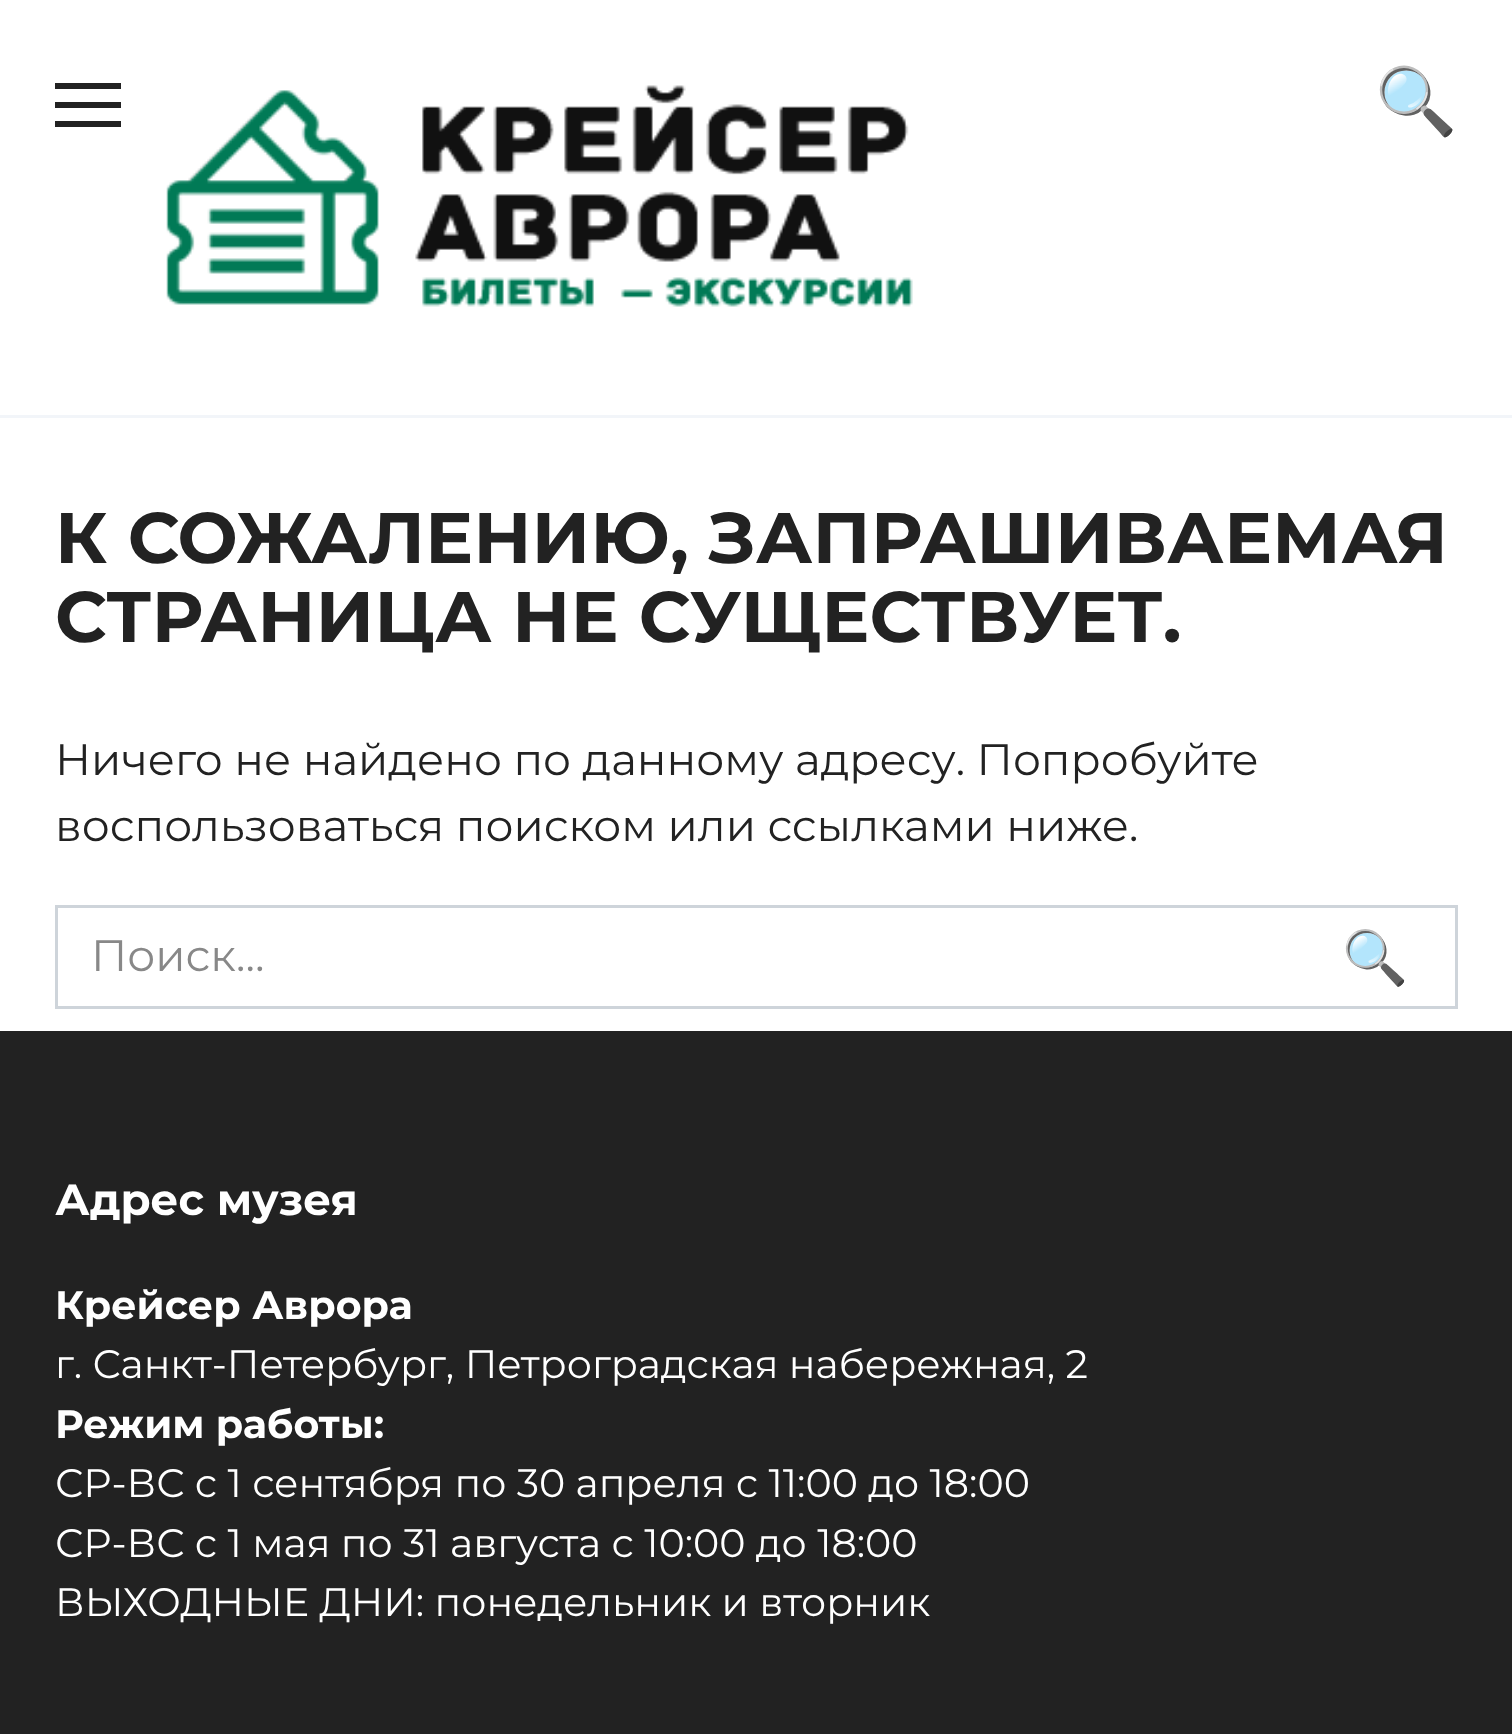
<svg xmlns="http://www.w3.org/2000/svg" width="1512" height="1734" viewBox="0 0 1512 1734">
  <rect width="100%" height="100%" fill="#ffffff"/>
  <rect x="0" y="415" width="1512" height="3" fill="#f2f5f9"/>
  <rect x="55" y="83" width="66" height="6" fill="#222222"/>
  <rect x="55" y="102" width="66" height="6" fill="#222222"/>
  <rect x="55" y="121" width="66" height="6" fill="#222222"/>
  <image x="166" y="85" width="747" height="222" href="img1.png"/>
  <text x="1375" y="124" font-family="Noto Color Emoji" font-size="66" fill="#222222">🔍</text>
  <text x="55" y="563" font-family="Montserrat" font-size="71.5" font-weight="bold" fill="#222222">К СОЖАЛЕНИЮ, ЗАПРАШИВАЕМАЯ</text>
  <text x="55" y="642" font-family="Montserrat" font-size="71.5" font-weight="bold" fill="#222222">СТРАНИЦА НЕ СУЩЕСТВУЕТ.</text>
  <text x="55" y="775" font-family="Montserrat" font-size="44" fill="#222222">Ничего не найдено по данному адресу. Попробуйте</text>
  <text x="55" y="841" font-family="Montserrat" font-size="44" fill="#222222">воспользоваться поиском или ссылками ниже.</text>
  <rect x="56.5" y="906.5" width="1400" height="101" fill="none" stroke="#ced4da" stroke-width="3"/>
  <text x="91" y="971" font-family="Montserrat" font-size="44" fill="#888888">Поиск…</text>
  <text x="1342" y="976" font-family="Noto Color Emoji" font-size="53" fill="#000000">🔍</text>
  <rect x="0" y="1031" width="1512" height="703" fill="#222222"/>
  <text x="55" y="1215" font-family="Montserrat" font-size="43.5" font-weight="bold" fill="#ffffff">Адрес музея</text>
  <text x="55" y="1319" font-family="Montserrat" font-size="39.6" font-weight="bold" fill="#ffffff">Крейсер Аврора</text>
  <text x="55" y="1378" font-family="Montserrat" font-size="39.6" fill="#ffffff">г. Санкт-Петербург, Петроградская набережная, 2</text>
  <text x="55" y="1438" font-family="Montserrat" font-size="39.6" font-weight="bold" fill="#ffffff">Режим работы:</text>
  <text x="55" y="1497" font-family="Montserrat" font-size="39.6" fill="#ffffff">СР-ВС с 1 сентября по 30 апреля с 11:00 до 18:00</text>
  <text x="55" y="1557" font-family="Montserrat" font-size="39.6" fill="#ffffff">СР-ВС с 1 мая по 31 августа с 10:00 до 18:00</text>
  <text x="55" y="1616" font-family="Montserrat" font-size="39.6" fill="#ffffff">ВЫХОДНЫЕ ДНИ: понедельник и вторник</text>
</svg>
